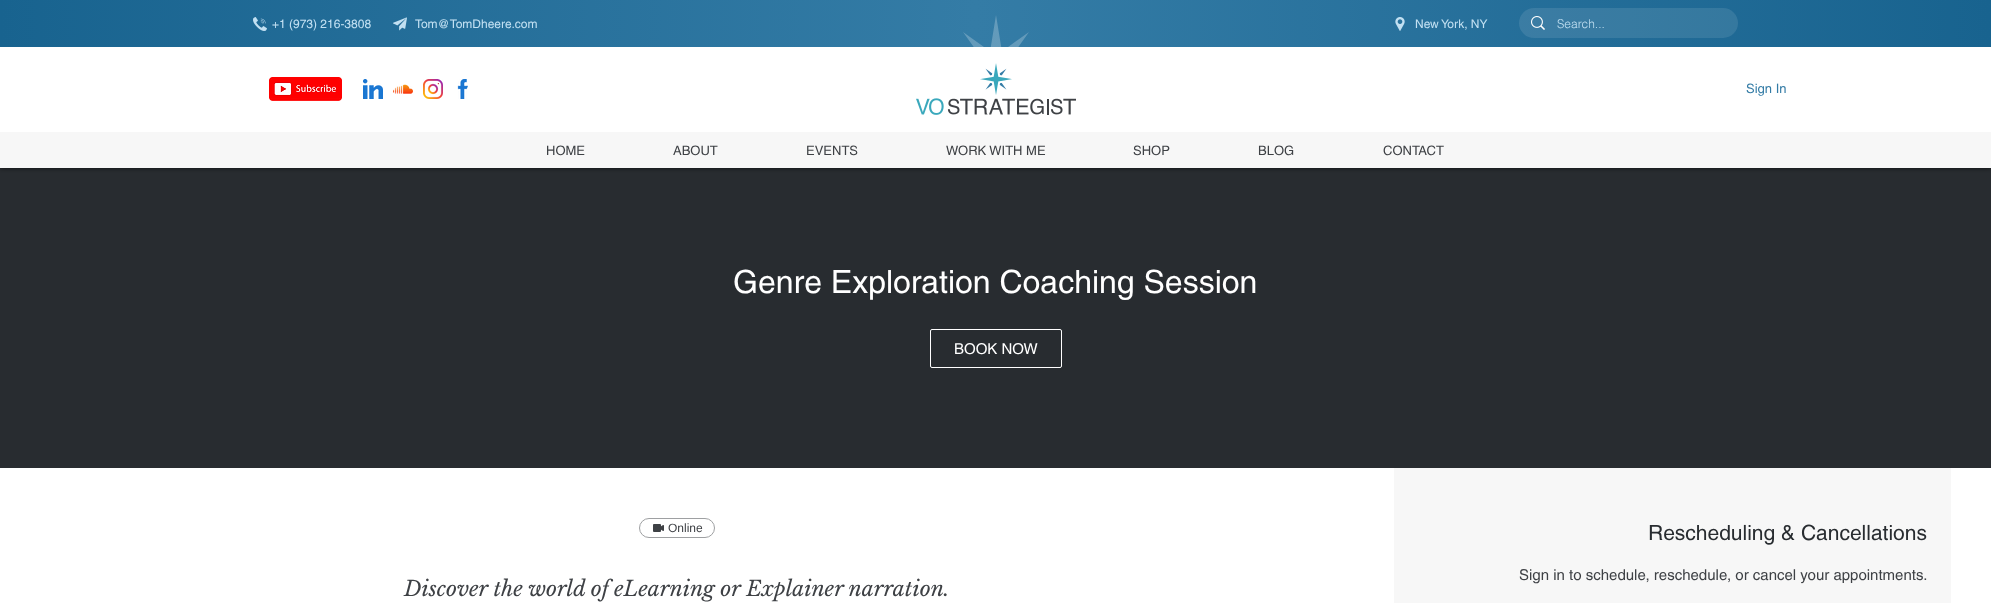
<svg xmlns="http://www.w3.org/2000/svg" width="1991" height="603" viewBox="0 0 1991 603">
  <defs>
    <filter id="blur1" x="-50%" y="-200%" width="200%" height="500%"><feGaussianBlur stdDeviation="2.5"/></filter>
    <linearGradient id="g1" gradientUnits="userSpaceOnUse" x1="0" y1="24" x2="1991" y2="23"><stop offset="0" stop-color="#18638f"/><stop offset="0.49" stop-color="#347ca6"/><stop offset="1" stop-color="#18638f"/></linearGradient>
  </defs>
  <rect width="100%" height="100%" fill="#ffffff"/>
  <rect x="0" y="168" width="1991" height="300" fill="#282c30"/>
  <rect x="0" y="0" width="1991" height="168" fill="#000000" fill-opacity="0.7" filter="url(#blur1)"/>
  <rect x="0" y="132" width="1991" height="36" fill="#f7f7f7"/>
  <rect x="0" y="0" width="1991" height="47" fill="url(#g1)"/>
  <image x="253" y="17" width="14" height="14" href="img1.png"/>
  <text x="272" y="28" font-family="helvetica" font-size="12" fill="#c2e0f2">+1 (973) 216-3808</text>
  <image x="393" y="17" width="14" height="14" href="img2.png"/>
  <text x="415" y="28" font-family="helvetica" font-size="12" fill="#c2e0f2">Tom@TomDheere.com</text>
  <image x="1395" y="17" width="10" height="14" href="img3.png"/>
  <text x="1415" y="28" font-family="helvetica" font-size="12" fill="#c2e0f2">New York, NY</text>
  <rect x="1519" y="8" width="219" height="30" rx="15" fill="#ffffff" fill-opacity="0.1"/>
  <image x="1531" y="16" width="14" height="14" href="img4.png"/>
  <text x="1557" y="28" font-family="helvetica" font-size="12" font-weight="300" fill="#c2e0f2">Search...</text>
  <rect x="0" y="47" width="1991" height="85" fill="#ffffff"/>
  <path d="M1003 58L996 15L989 58L946 65L989 72L996 115L1003 72L1046 65Z" fill="#ffffff" fill-opacity="0.24"/>
  <path d="M978 77L963 98L984 83C983 77 984 78 978 77ZM1014 53L1029 32L1008 47L1009 52ZM978 53L983 52L984 47L963 32ZM1009 78L1008 83L1029 98L1014 77Z" fill="#ffffff" fill-opacity="0.24"/>
  <image x="916" y="63" width="160" height="52" href="img5.png"/>
  <image x="269" y="77" width="73" height="24" href="img6.png"/>
  <image x="363" y="79" width="20" height="20" href="img7.png"/>
  <image x="393" y="84" width="20" height="10" href="img8.png"/>
  <image x="423" y="79" width="20" height="20" href="img9.png"/>
  <image x="457" y="79" width="11" height="20" href="img10.png"/>
  <text x="1746" y="93" font-family="helvetica" font-size="13" fill="#347ca6">Sign In</text>
  <text x="546" y="155" font-family="helvetica" font-size="13" fill="#3e4145">HOME</text>
  <text x="673" y="155" font-family="helvetica" font-size="13" fill="#3e4145">ABOUT</text>
  <text x="806" y="155" font-family="helvetica" font-size="13" fill="#3e4145">EVENTS</text>
  <text x="946" y="155" font-family="helvetica" font-size="13" fill="#3e4145">WORK WITH ME</text>
  <text x="1133" y="155" font-family="helvetica" font-size="13" fill="#3e4145">SHOP</text>
  <text x="1258" y="155" font-family="helvetica" font-size="13" fill="#3e4145">BLOG</text>
  <text x="1383" y="155" font-family="helvetica" font-size="13" fill="#3e4145">CONTACT</text>
  <text x="733" y="293" font-family="helvetica" font-size="32" fill="#ffffff">Genre Exploration Coaching Session</text>
  <rect x="930.5" y="329.5" width="131" height="38" rx="1.5" fill="none" stroke="#ffffff"/>
  <text x="954" y="354" font-family="helvetica" font-size="15" fill="#ffffff">BOOK NOW</text>
  <rect x="639.5" y="518.5" width="75" height="19" rx="9.5" fill="none" stroke="#9ea0a2"/>
  <image x="653" y="524" width="11" height="8" href="img11.png"/>
  <text x="668" y="532" font-family="Liberation Sans" font-size="12" fill="#3e4145">Online</text>
  <text x="404" y="596" font-family="Libre Baskerville" font-size="21" font-style="italic" fill="#3e4145">Discover the world of eLearning or Explainer narration.</text>
  <rect x="1394" y="468" width="557" height="135" fill="#f7f7f7"/>
  <text x="1648" y="540" font-family="helvetica" font-size="21" fill="#282c30">Rescheduling &amp; Cancellations</text>
  <text x="1519" y="580" font-family="helvetica" font-size="15" fill="#3e4145">Sign in to schedule, reschedule, or cancel your appointments.</text>
</svg>
